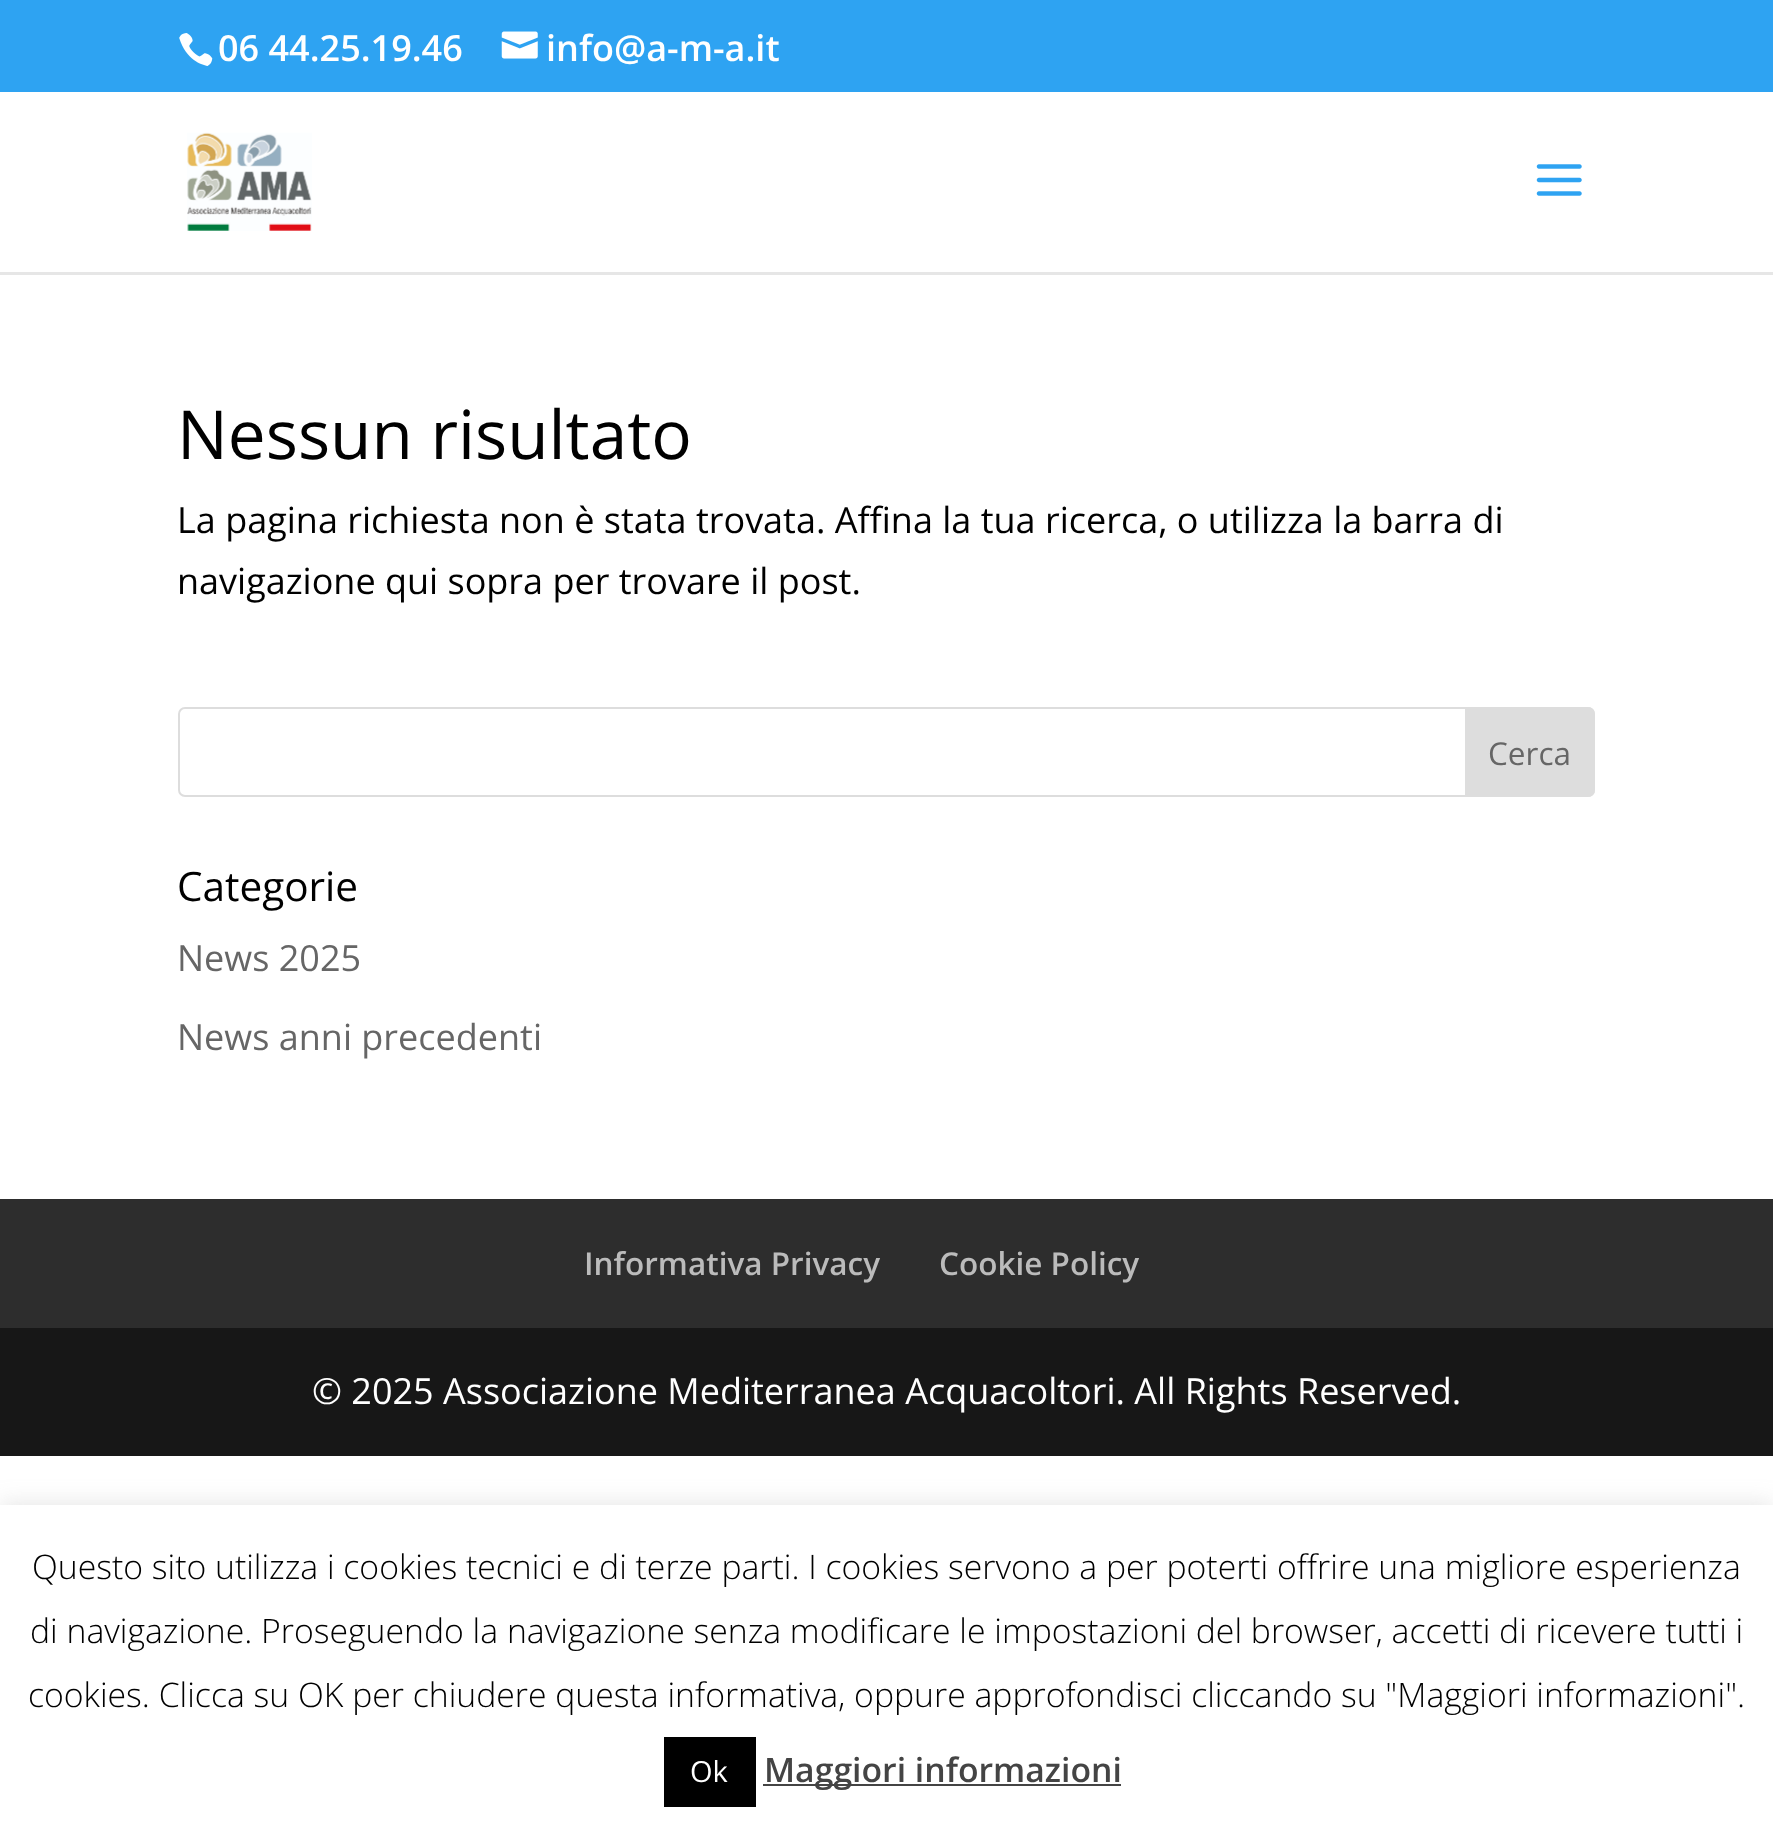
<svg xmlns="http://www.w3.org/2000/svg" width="1773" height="1832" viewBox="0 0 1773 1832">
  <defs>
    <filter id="blur1" x="-50%" y="-200%" width="200%" height="500%"><feGaussianBlur stdDeviation="11"/></filter>
  </defs>
  <rect width="100%" height="100%" fill="#ffffff"/>
  <rect x="0" y="0" width="1773" height="92" fill="#2ea3f2"/>
  <image x="179" y="33" width="34" height="33" href="img1.png"/>
  <text x="218" y="61" font-family="Open Sans" font-size="36" font-weight="600" fill="#ffffff">06 44.25.19.46</text>
  <image x="501" y="31" width="37" height="28" href="img2.png"/>
  <text x="546" y="61" font-family="Open Sans" font-size="36" font-weight="600" fill="#ffffff">info@a-m-a.it</text>
  <rect x="0" y="272" width="1773" height="3" fill="#e6e6e6"/>
  <image x="187" y="132" width="125" height="99" href="img3.png"/>
  <image x="1536" y="164" width="46" height="32" href="img4.png"/>
  <text x="177" y="459" font-family="Open Sans" font-size="67.5" fill="#000000">Nessun risultato</text>
  <text x="177" y="533" font-family="Open Sans" font-size="36" fill="#000000">La pagina richiesta non è stata trovata. Affina la tua ricerca, o utilizza la barra di</text>
  <text x="177" y="594" font-family="Open Sans" font-size="36" fill="#000000">navigazione qui sopra per trovare il post.</text>
  <rect x="179" y="708" width="1415" height="88" rx="6" fill="none" stroke="#dddddd" stroke-width="2"/>
  <path d="M1466 708H1588C1591.5 708 1594 710.5 1594 714V790C1594 793.5 1591.5 796 1588 796H1466Z" fill="#dddddd" stroke="#dddddd" stroke-width="2"/>
  <text x="1488" y="765" font-family="Open Sans" font-size="31.5" fill="#666666">Cerca</text>
  <text x="177" y="901" font-family="Open Sans" font-size="40.5" fill="#000000">Categorie</text>
  <text x="177" y="971" font-family="Open Sans" font-size="36" fill="#666666">News 2025</text>
  <text x="177" y="1050" font-family="Open Sans" font-size="36" fill="#666666">News anni precedenti</text>
  <rect x="0" y="1199" width="1773" height="129" fill="#2d2d2d"/>
  <text x="584" y="1275" font-family="Open Sans" font-size="31.5" font-weight="600" fill="#bbbbbb">Informativa Privacy</text>
  <text x="939" y="1275" font-family="Open Sans" font-size="31.5" font-weight="600" fill="#bbbbbb">Cookie Policy</text>
  <rect x="0" y="1328" width="1773" height="128" fill="#171717"/>
  <text x="312" y="1404" font-family="Open Sans" font-size="36" fill="#ffffff">© 2025 Associazione Mediterranea Acquacoltori. All Rights Reserved.</text>
  <rect x="0" y="1503" width="1773" height="329" fill="#acabab" fill-opacity="0.3" filter="url(#blur1)"/>
  <rect x="0" y="1505" width="1773" height="327" fill="#ffffff"/>
  <text x="32" y="1579" font-family="Open Sans" font-size="33.75" font-weight="300" fill="#000000">Questo sito utilizza i cookies tecnici e di terze parti. I cookies servono a per poterti offrire una migliore esperienza</text>
  <text x="30" y="1643" font-family="Open Sans" font-size="33.75" font-weight="300" fill="#000000">di navigazione. Proseguendo la navigazione senza modificare le impostazioni del browser, accetti di ricevere tutti i</text>
  <text x="28" y="1707" font-family="Open Sans" font-size="33.75" font-weight="300" fill="#000000">cookies. Clicca su OK per chiudere questa informativa, oppure approfondisci cliccando su "Maggiori informazioni".</text>
  <rect x="664" y="1737" width="92" height="70" fill="#000000"/>
  <text x="690" y="1782" font-family="Open Sans" font-size="29" fill="#ffffff">Ok</text>
  <rect x="763" y="1784" width="358" height="2" fill="#444444"/>
  <text x="764" y="1782" font-family="Open Sans" font-size="33.75" font-weight="600" fill="#444444">Maggiori informazioni</text>
</svg>
